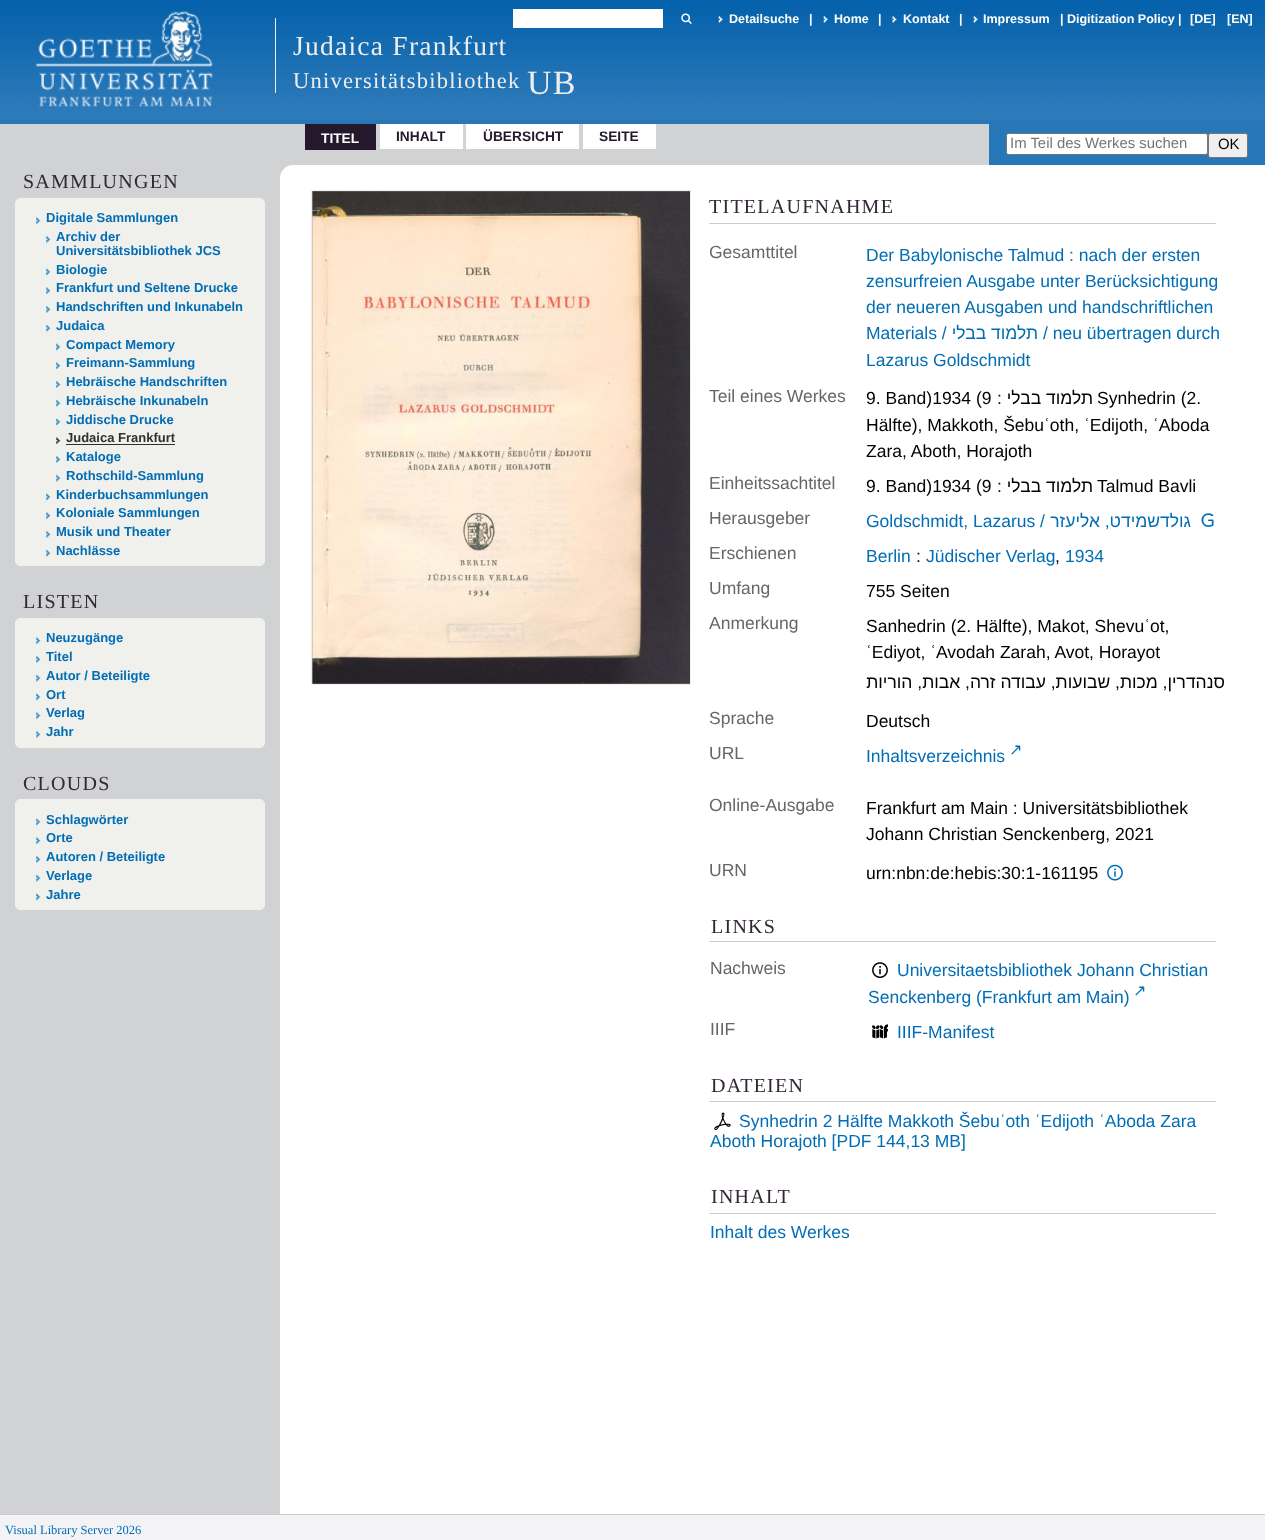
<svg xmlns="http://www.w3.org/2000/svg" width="1265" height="1540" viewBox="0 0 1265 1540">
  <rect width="100%" height="100%" fill="#2776b8"/>
  <image x="0" y="0" width="1265" height="120" href="img1.png"/>
  <image x="36" y="11" width="177" height="96" href="img2.png"/>
  <rect x="513" y="9" width="150" height="19" fill="#ffffff"/>
  <image x="681" y="13" width="11" height="11" href="img3.png"/>
  <image x="718" y="16" width="5" height="7" href="img4.png"/>
  <text x="729" y="23" font-family="Liberation Sans" font-size="12.5" font-weight="bold" fill="#ffffff">Detailsuche</text>
  <text x="809" y="23" font-family="Liberation Sans" font-size="12.5" font-weight="bold" fill="#ffffff">|</text>
  <image x="823" y="16" width="5" height="7" href="img5.png"/>
  <text x="834" y="23" font-family="Liberation Sans" font-size="12.5" font-weight="bold" fill="#ffffff">Home</text>
  <text x="878" y="23" font-family="Liberation Sans" font-size="12.5" font-weight="bold" fill="#ffffff">|</text>
  <image x="892" y="16" width="5" height="7" href="img6.png"/>
  <text x="903" y="23" font-family="Liberation Sans" font-size="12.5" font-weight="bold" fill="#ffffff">Kontakt</text>
  <text x="959" y="23" font-family="Liberation Sans" font-size="12.5" font-weight="bold" fill="#ffffff">|</text>
  <image x="973" y="16" width="5" height="7" href="img4.png"/>
  <text x="983" y="23" font-family="Liberation Sans" font-size="12.5" font-weight="bold" fill="#ffffff">Impressum</text>
  <text x="1060" y="23" font-family="Liberation Sans" font-size="12.5" font-weight="bold" fill="#ffffff">| Digitization Policy |</text>
  <text x="1190" y="23" font-family="Liberation Sans" font-size="12.5" font-weight="bold" fill="#ffffff">[DE]</text>
  <text x="1227" y="23" font-family="Liberation Sans" font-size="12.5" font-weight="bold" fill="#ffffff">[EN]</text>
  <rect x="275" y="18" width="1" height="75" fill="#eeeeee"/>
  <text x="293" y="55" font-family="Liberation Serif" font-size="27.5" letter-spacing="1.25" fill="#eeeeee">Judaica Frankfurt</text>
  <text x="293" y="88" font-family="Liberation Serif" font-size="22.5" letter-spacing="1.25" fill="#eeeeee">Universitätsbibliothek</text>
  <text x="527" y="94" font-family="Liberation Serif" font-size="34" letter-spacing="1.25" fill="#eeeeee">UB</text>
  <rect x="0" y="124" width="989" height="41" fill="#d1d2d4"/>
  <rect x="305" y="124" width="71" height="26" fill="#25182c"/>
  <text x="321" y="143" font-family="Liberation Sans" font-size="13.75" font-weight="bold" fill="#ffffff">TITEL</text>
  <rect x="380" y="124" width="83" height="25" fill="#ffffff"/>
  <text x="396" y="141" font-family="Liberation Sans" font-size="13.75" font-weight="bold" fill="#25182c">INHALT</text>
  <rect x="466" y="124" width="113" height="25" fill="#ffffff"/>
  <text x="483" y="141" font-family="Liberation Sans" font-size="13.75" font-weight="bold" fill="#25182c">ÜBERSICHT</text>
  <rect x="583" y="124" width="73" height="25" fill="#ffffff"/>
  <text x="599" y="141" font-family="Liberation Sans" font-size="13.75" font-weight="bold" fill="#25182c">SEITE</text>
  <rect x="1006.5" y="133.5" width="201" height="21" rx="2" fill="#ffffff" stroke="#767676"/>
  <text x="1010" y="148" font-family="Liberation Sans" font-size="14.9" fill="#757575">Im Teil des Werkes suchen</text>
  <rect x="1208.5" y="133.5" width="39" height="24" rx="2" fill="#efefef" stroke="#767676"/>
  <text x="1218" y="149" font-family="Liberation Sans" font-size="14.9" fill="#000000">OK</text>
  <rect x="0" y="165" width="293" height="1349" fill="#d1d2d4"/>
  <text x="23" y="188" font-family="Liberation Serif" font-size="20" letter-spacing="1.25" fill="#332636">SAMMLUNGEN</text>
  <rect x="15.5" y="198.5" width="249" height="367" rx="4.5" fill="#f0f0ec" stroke="#f0f0ec"/>
  <image x="36" y="217" width="5" height="7" href="img7.png"/>
  <text x="46" y="222" font-family="Liberation Sans" font-size="13" font-weight="bold" fill="#006db5">Digitale Sammlungen</text>
  <image x="46" y="236" width="5" height="7" href="img8.png"/>
  <text x="56" y="241" font-family="Liberation Sans" font-size="13" font-weight="bold" fill="#006db5">Archiv der</text>
  <text x="56" y="255" font-family="Liberation Sans" font-size="13" font-weight="bold" fill="#006db5">Universitätsbibliothek JCS</text>
  <image x="46" y="268" width="5" height="8" href="img9.png"/>
  <text x="56" y="274" font-family="Liberation Sans" font-size="13" font-weight="bold" fill="#006db5">Biologie</text>
  <image x="46" y="287" width="5" height="7" href="img7.png"/>
  <text x="56" y="292" font-family="Liberation Sans" font-size="13" font-weight="bold" fill="#006db5">Frankfurt und Seltene Drucke</text>
  <image x="46" y="306" width="5" height="7" href="img8.png"/>
  <text x="56" y="311" font-family="Liberation Sans" font-size="13" font-weight="bold" fill="#006db5">Handschriften und Inkunabeln</text>
  <image x="46" y="324" width="5" height="8" href="img10.png"/>
  <text x="56" y="330" font-family="Liberation Sans" font-size="13" font-weight="bold" fill="#006db5">Judaica</text>
  <image x="56" y="343" width="5" height="8" href="img9.png"/>
  <text x="66" y="349" font-family="Liberation Sans" font-size="13" font-weight="bold" fill="#006db5">Compact Memory</text>
  <image x="56" y="362" width="5" height="7" href="img7.png"/>
  <text x="66" y="367" font-family="Liberation Sans" font-size="13" font-weight="bold" fill="#006db5">Freimann-Sammlung</text>
  <image x="56" y="381" width="5" height="7" href="img8.png"/>
  <text x="66" y="386" font-family="Liberation Sans" font-size="13" font-weight="bold" fill="#006db5">Hebräische Handschriften</text>
  <image x="56" y="399" width="5" height="8" href="img10.png"/>
  <text x="66" y="405" font-family="Liberation Sans" font-size="13" font-weight="bold" fill="#006db5">Hebräische Inkunabeln</text>
  <image x="56" y="418" width="5" height="8" href="img9.png"/>
  <text x="66" y="424" font-family="Liberation Sans" font-size="13" font-weight="bold" fill="#006db5">Jiddische Drucke</text>
  <image x="56" y="437" width="5" height="7" href="img11.png"/>
  <text x="66" y="442" font-family="Liberation Sans" font-size="13" font-weight="bold" fill="#303030">Judaica Frankfurt</text>
  <rect x="66" y="444" width="109" height="1" fill="#303030"/>
  <image x="56" y="456" width="5" height="7" href="img8.png"/>
  <text x="66" y="461" font-family="Liberation Sans" font-size="13" font-weight="bold" fill="#006db5">Kataloge</text>
  <image x="56" y="474" width="5" height="8" href="img10.png"/>
  <text x="66" y="480" font-family="Liberation Sans" font-size="13" font-weight="bold" fill="#006db5">Rothschild-Sammlung</text>
  <image x="46" y="493" width="5" height="8" href="img9.png"/>
  <text x="56" y="499" font-family="Liberation Sans" font-size="13" font-weight="bold" fill="#006db5">Kinderbuchsammlungen</text>
  <image x="46" y="512" width="5" height="7" href="img7.png"/>
  <text x="56" y="517" font-family="Liberation Sans" font-size="13" font-weight="bold" fill="#006db5">Koloniale Sammlungen</text>
  <image x="46" y="531" width="5" height="7" href="img8.png"/>
  <text x="56" y="536" font-family="Liberation Sans" font-size="13" font-weight="bold" fill="#006db5">Musik und Theater</text>
  <image x="46" y="549" width="5" height="8" href="img10.png"/>
  <text x="56" y="555" font-family="Liberation Sans" font-size="13" font-weight="bold" fill="#006db5">Nachlässe</text>
  <text x="23" y="608" font-family="Liberation Serif" font-size="20" letter-spacing="1.25" fill="#332636">LISTEN</text>
  <rect x="15.5" y="618.5" width="249" height="129" rx="4.5" fill="#f0f0ec" stroke="#f0f0ec"/>
  <image x="36" y="637" width="5" height="7" href="img7.png"/>
  <text x="46" y="642" font-family="Liberation Sans" font-size="13" font-weight="bold" fill="#006db5">Neuzugänge</text>
  <image x="36" y="656" width="5" height="7" href="img8.png"/>
  <text x="46" y="661" font-family="Liberation Sans" font-size="13" font-weight="bold" fill="#006db5">Titel</text>
  <image x="36" y="674" width="5" height="8" href="img10.png"/>
  <text x="46" y="680" font-family="Liberation Sans" font-size="13" font-weight="bold" fill="#006db5">Autor / Beteiligte</text>
  <image x="36" y="693" width="5" height="8" href="img9.png"/>
  <text x="46" y="699" font-family="Liberation Sans" font-size="13" font-weight="bold" fill="#006db5">Ort</text>
  <image x="36" y="712" width="5" height="7" href="img7.png"/>
  <text x="46" y="717" font-family="Liberation Sans" font-size="13" font-weight="bold" fill="#006db5">Verlag</text>
  <image x="36" y="731" width="5" height="7" href="img8.png"/>
  <text x="46" y="736" font-family="Liberation Sans" font-size="13" font-weight="bold" fill="#006db5">Jahr</text>
  <text x="23" y="790" font-family="Liberation Serif" font-size="20" letter-spacing="1.25" fill="#332636">CLOUDS</text>
  <rect x="15.5" y="799.5" width="249" height="110" rx="4.5" fill="#f0f0ec" stroke="#f0f0ec"/>
  <image x="36" y="818" width="5" height="8" href="img9.png"/>
  <text x="46" y="824" font-family="Liberation Sans" font-size="13" font-weight="bold" fill="#006db5">Schlagwörter</text>
  <image x="36" y="837" width="5" height="7" href="img7.png"/>
  <text x="46" y="842" font-family="Liberation Sans" font-size="13" font-weight="bold" fill="#006db5">Orte</text>
  <image x="36" y="856" width="5" height="7" href="img8.png"/>
  <text x="46" y="861" font-family="Liberation Sans" font-size="13" font-weight="bold" fill="#006db5">Autoren / Beteiligte</text>
  <image x="36" y="874" width="5" height="8" href="img10.png"/>
  <text x="46" y="880" font-family="Liberation Sans" font-size="13" font-weight="bold" fill="#006db5">Verlage</text>
  <image x="36" y="893" width="5" height="8" href="img9.png"/>
  <text x="46" y="899" font-family="Liberation Sans" font-size="13" font-weight="bold" fill="#006db5">Jahre</text>
  <path d="M293 165H1265V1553H280V178C280 171 286 165 293 165Z" fill="#ffffff"/>
  <rect x="311.5" y="190.5" width="379" height="494" fill="#aaaaaa" stroke="#eeeeec"/>
  <image x="312" y="191" width="378" height="493" href="img12.png"/>
  <rect x="709" y="223" width="507" height="1" fill="#cccccc"/>
  <text x="709" y="213" font-family="Liberation Serif" font-size="20" letter-spacing="1.25" fill="#332636">TITELAUFNAHME</text>
  <text x="709" y="258" font-family="Liberation Sans" font-size="17.5" fill="#666666">Gesamttitel</text>
  <text x="866" y="261" font-family="Liberation Sans" font-size="17.5" fill="#006db5">Der Babylonische Talmud : nach der ersten</text>
  <text x="866" y="287" font-family="Liberation Sans" font-size="17.5" fill="#006db5">zensurfreien Ausgabe unter Berücksichtigung</text>
  <text x="866" y="313" font-family="Liberation Sans" font-size="17.5" fill="#006db5">der neueren Ausgaben und handschriftlichen</text>
  <text x="866" y="339" font-family="Liberation Sans" font-size="17.5" fill="#006db5">Materials /</text>
  <text x="1038" y="339" font-family="Liberation Sans" font-size="17.5" direction="rtl" fill="#006db5">תלמוד בבלי</text>
  <text x="1043" y="339" font-family="Liberation Sans" font-size="17.5" fill="#006db5">/ neu übertragen durch</text>
  <text x="866" y="366" font-family="Liberation Sans" font-size="17.5" fill="#006db5">Lazarus Goldschmidt</text>
  <text x="709" y="402" font-family="Liberation Sans" font-size="17.5" fill="#666666">Teil eines Werkes</text>
  <text x="866" y="404" font-family="Liberation Sans" font-size="17.5" fill="#000000">9. Band)1934 (9</text>
  <text x="1093" y="404" font-family="Liberation Sans" font-size="17.5" direction="rtl" fill="#000000">תלמוד בבלי :</text>
  <text x="1097" y="404" font-family="Liberation Sans" font-size="17.5" fill="#000000">Synhedrin (2.</text>
  <text x="866" y="431" font-family="Liberation Sans" font-size="17.5" fill="#000000">Hälfte), Makkoth, Šebuʿoth, ʿEdijoth, ʿAboda</text>
  <text x="866" y="457" font-family="Liberation Sans" font-size="17.5" fill="#000000">Zara, Aboth, Horajoth</text>
  <text x="709" y="489" font-family="Liberation Sans" font-size="17.5" fill="#666666">Einheitssachtitel</text>
  <text x="866" y="492" font-family="Liberation Sans" font-size="17.5" fill="#000000">9. Band)1934 (9</text>
  <text x="1093" y="492" font-family="Liberation Sans" font-size="17.5" direction="rtl" fill="#000000">תלמוד בבלי :</text>
  <text x="1097" y="492" font-family="Liberation Sans" font-size="17.5" fill="#000000">Talmud Bavli</text>
  <text x="709" y="524" font-family="Liberation Sans" font-size="17.5" fill="#666666">Herausgeber</text>
  <text x="866" y="527" font-family="Liberation Sans" font-size="17.5" fill="#006db5">Goldschmidt, Lazarus /</text>
  <text x="1191" y="527" font-family="Liberation Sans" font-size="17.5" direction="rtl" fill="#006db5">גולדשמידט, אליעזר</text>
  <image x="1201" y="513" width="13" height="14" href="img13.png"/>
  <text x="709" y="559" font-family="Liberation Sans" font-size="17.5" fill="#666666">Erschienen</text>
  <text x="866" y="562" font-family="Liberation Sans" font-size="17.5" fill="#006db5">Berlin</text>
  <text x="916" y="562" font-family="Liberation Sans" font-size="17.5" fill="#000000">:</text>
  <text x="926" y="562" font-family="Liberation Sans" font-size="17.5" fill="#006db5">Jüdischer Verlag</text>
  <text x="1065" y="562" font-family="Liberation Sans" font-size="17.5" fill="#006db5">1934</text>
  <text x="1055" y="562" font-family="Liberation Sans" font-size="17.5" fill="#000000">,</text>
  <text x="709" y="594" font-family="Liberation Sans" font-size="17.5" fill="#666666">Umfang</text>
  <text x="866" y="597" font-family="Liberation Sans" font-size="17.5" fill="#000000">755 Seiten</text>
  <text x="709" y="629" font-family="Liberation Sans" font-size="17.5" fill="#666666">Anmerkung</text>
  <text x="866" y="632" font-family="Liberation Sans" font-size="17.5" fill="#000000">Sanhedrin (2. Hälfte), Makot, Shevuʿot,</text>
  <text x="866" y="658" font-family="Liberation Sans" font-size="17.5" fill="#000000">ʿEdiyot, ʿAvodah Zarah, Avot, Horayot</text>
  <text x="1225" y="688" font-family="Liberation Sans" font-size="17.5" direction="rtl" fill="#000000">סנהדרין, מכות, שבועות, עבודה זרה, אבות, הוריות</text>
  <text x="709" y="724" font-family="Liberation Sans" font-size="17.5" fill="#666666">Sprache</text>
  <text x="866" y="727" font-family="Liberation Sans" font-size="17.5" fill="#000000">Deutsch</text>
  <text x="709" y="759" font-family="Liberation Sans" font-size="17.5" fill="#666666">URL</text>
  <text x="866" y="762" font-family="Liberation Sans" font-size="17.5" fill="#006db5">Inhaltsverzeichnis</text>
  <text x="1009" y="755" font-family="DejaVu Sans" font-size="16" fill="#006db5">↗</text>
  <text x="709" y="811" font-family="Liberation Sans" font-size="17.5" fill="#666666">Online-Ausgabe</text>
  <text x="866" y="814" font-family="Liberation Sans" font-size="17.5" fill="#000000">Frankfurt am Main : Universitätsbibliothek</text>
  <text x="866" y="840" font-family="Liberation Sans" font-size="17.5" fill="#000000">Johann Christian Senckenberg, 2021</text>
  <text x="709" y="876" font-family="Liberation Sans" font-size="17.5" fill="#666666">URN</text>
  <text x="866" y="879" font-family="Liberation Sans" font-size="17.5" fill="#000000">urn:nbn:de:hebis:30:1-161195</text>
  <image x="1107" y="864" width="16" height="17" href="img14.png"/>
  <rect x="709" y="941" width="507" height="1" fill="#cccccc"/>
  <text x="711" y="933" font-family="Liberation Serif" font-size="20" letter-spacing="1.25" fill="#332636">LINKS</text>
  <text x="710" y="974" font-family="Liberation Sans" font-size="17.5" fill="#666666">Nachweis</text>
  <image x="872" y="962" width="16" height="16" href="img15.png"/>
  <text x="897" y="976" font-family="Liberation Sans" font-size="17.5" fill="#006db5">Universitaetsbibliothek Johann Christian</text>
  <text x="868" y="1003" font-family="Liberation Sans" font-size="17.5" fill="#006db5">Senckenberg (Frankfurt am Main)</text>
  <text x="1133" y="996" font-family="DejaVu Sans" font-size="16" fill="#006db5">↗</text>
  <text x="710" y="1035" font-family="Liberation Sans" font-size="17.5" fill="#666666">IIIF</text>
  <image x="872" y="1024" width="16" height="15" href="img16.png"/>
  <text x="897" y="1038" font-family="Liberation Sans" font-size="17.5" fill="#006db5">IIIF-Manifest</text>
  <rect x="709" y="1101" width="507" height="1" fill="#cccccc"/>
  <text x="711" y="1092" font-family="Liberation Serif" font-size="20" letter-spacing="1.25" fill="#332636">DATEIEN</text>
  <image x="714" y="1112" width="17" height="19" href="img17.png"/>
  <text x="739" y="1127" font-family="Liberation Sans" font-size="17.5" fill="#006db5">Synhedrin 2 Hälfte Makkoth Šebuʿoth ʿEdijoth ʿAboda Zara</text>
  <text x="710" y="1147" font-family="Liberation Sans" font-size="17.5" fill="#006db5">Aboth Horajoth [PDF 144,13 MB]</text>
  <rect x="709" y="1213" width="507" height="1" fill="#cccccc"/>
  <text x="711" y="1203" font-family="Liberation Serif" font-size="20" letter-spacing="1.25" fill="#332636">INHALT</text>
  <text x="710" y="1238" font-family="Liberation Sans" font-size="17.5" fill="#006db5">Inhalt des Werkes</text>
  <rect x="0" y="1515" width="1265" height="25" fill="#f3f3f6"/>
  <rect x="0" y="1514" width="1265" height="1" fill="#cccccc"/>
  <text x="5" y="1534" font-family="Liberation Serif" font-size="12.5" fill="#006db5">Visual Library Server 2026</text>
</svg>
